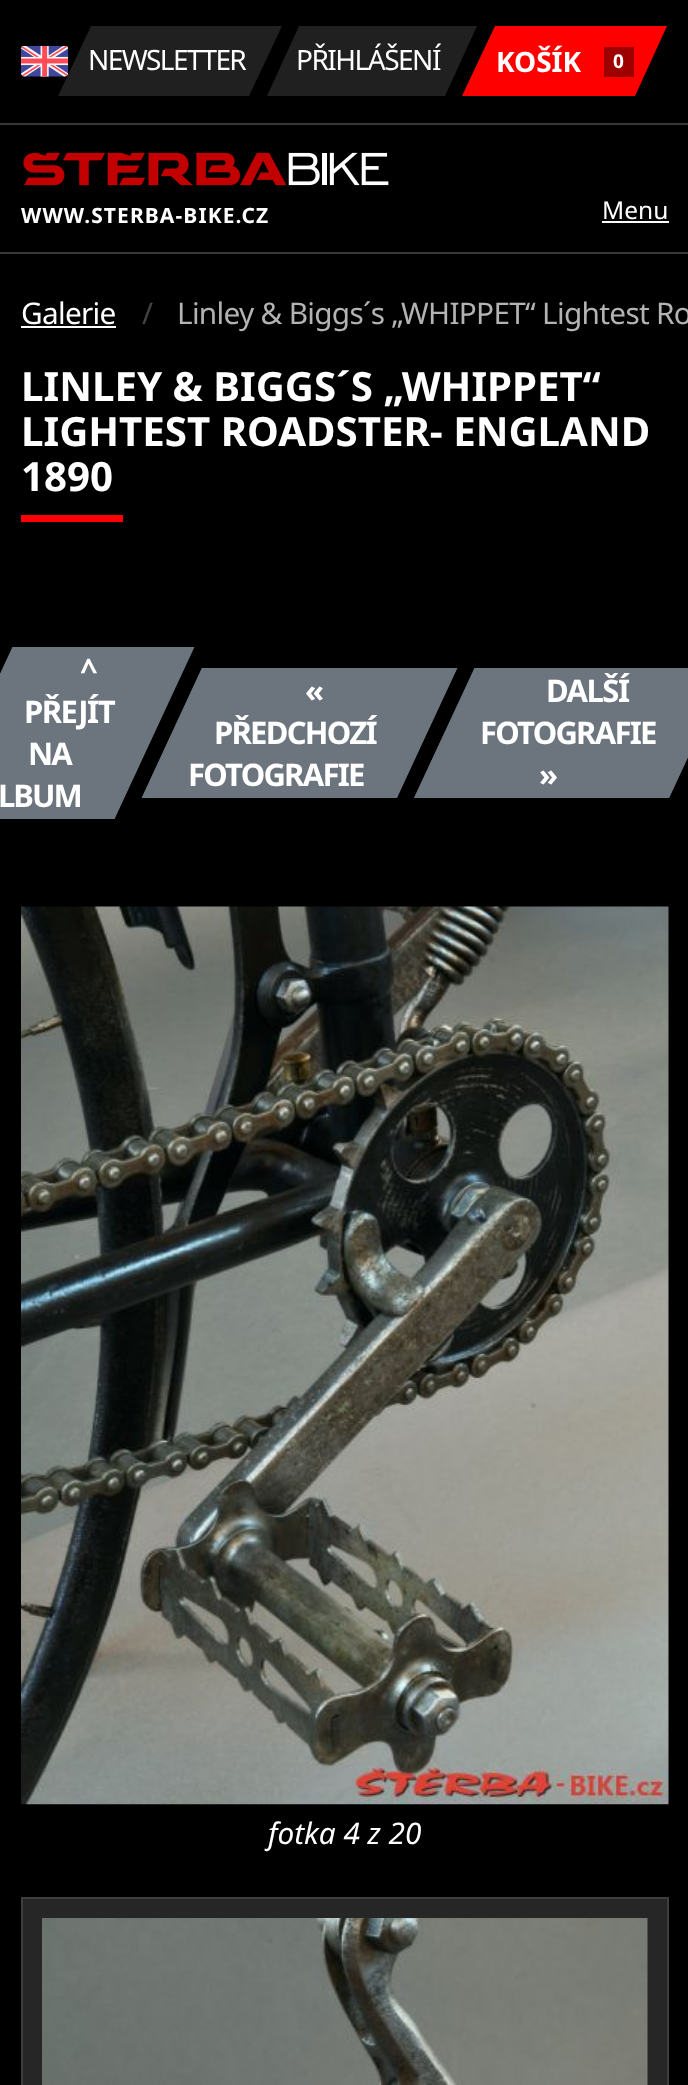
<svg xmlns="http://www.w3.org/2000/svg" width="688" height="2085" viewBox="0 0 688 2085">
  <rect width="100%" height="100%" fill="#000000"/>
  <rect x="0" y="252" width="688" height="2" fill="#373737"/>
  <rect x="0" y="123" width="688" height="2" fill="#373737"/>
  <image x="21" y="46" width="47" height="31" href="img1.png"/>
  <path d="M91 26H282L249 96H58Z" fill="#202020"/>
  <text x="88" y="70" font-family="Noto Sans" font-size="28" letter-spacing="-1.6" fill="#ffffff">NEWSLETTER</text>
  <path d="M299 26H477L445 96H267Z" fill="#202020"/>
  <text x="296" y="70" font-family="Noto Sans" font-size="28" letter-spacing="-1.5" fill="#ffffff">PŘIHLÁŠENÍ</text>
  <path d="M495 26H667L635 96H462Z" fill="#ff0000"/>
  <text x="496" y="72" font-family="Noto Sans" font-size="28" font-weight="bold" fill="#ffffff">KOŠÍK</text>
  <rect x="604" y="47" width="30" height="30" fill="#9e0000"/>
  <text x="613" y="68" font-family="Noto Sans" font-size="19" font-weight="bold" fill="#ffffff">0</text>
  <image x="23" y="152" width="366" height="34" href="img2.png"/>
  <text x="21" y="223" font-family="Noto Sans" font-size="21" font-weight="bold" letter-spacing="1.1" fill="#ffffff">WWW.STERBA-BIKE.CZ</text>
  <text x="602" y="219" font-family="Noto Sans" font-size="24.5" fill="#ffffff">Menu</text>
  <rect x="602" y="221" width="67" height="2" fill="#ffffff"/>
  <text x="21" y="324" font-family="Noto Sans" font-size="29.75" letter-spacing="-0.7" fill="#ffffff">Galerie</text>
  <rect x="21" y="326" width="95" height="2" fill="#ffffff"/>
  <text x="142" y="324" font-family="Noto Sans" font-size="29.75" letter-spacing="-0.7" fill="#434343">/</text>
  <text x="177" y="324" font-family="Noto Sans" font-size="29.75" letter-spacing="-0.7" fill="#b3b3b3">Linley &amp; Biggs´s „WHIPPET“ Lightest Ro</text>
  <text x="21" y="401" font-family="Noto Sans" font-size="40.25" font-weight="bold" fill="#ffffff">LINLEY &amp; BIGGS´S „WHIPPET“</text>
  <text x="21" y="446" font-family="Noto Sans" font-size="40.25" font-weight="bold" fill="#ffffff">LIGHTEST ROADSTER- ENGLAND</text>
  <text x="21" y="491" font-family="Noto Sans" font-size="40.25" font-weight="bold" fill="#ffffff">1890</text>
  <rect x="21" y="515" width="102" height="7" fill="#ff0000"/>
  <path d="M13 647H194L114 819H-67Z" fill="#6c757d"/>
  <path d="M13 648H193L114 818H-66Z" fill="none" stroke="#6c757d" stroke-width="1.8"/>
  <text x="80" y="681" font-family="Noto Sans" font-size="31" font-weight="bold" letter-spacing="-2" fill="#ffffff">^</text>
  <text x="24" y="723" font-family="Noto Sans" font-size="31" font-weight="bold" letter-spacing="-1.5" fill="#ffffff">PŘEJÍT</text>
  <text x="28" y="765" font-family="Noto Sans" font-size="31" font-weight="bold" letter-spacing="-2" fill="#ffffff">NA</text>
  <text x="-2" y="807" font-family="Noto Sans" font-size="31" font-weight="bold" letter-spacing="-2" fill="#ffffff">LBUM</text>
  <path d="M202 668H457L397 798H142Z" fill="#6c757d"/>
  <path d="M202.5 669H456L396 797H143Z" fill="none" stroke="#6c757d" stroke-width="1.8"/>
  <text x="305" y="702" font-family="Noto Sans" font-size="31" font-weight="bold" letter-spacing="-2" fill="#ffffff">«</text>
  <text x="214" y="744" font-family="Noto Sans" font-size="31" font-weight="bold" letter-spacing="-1.75" fill="#ffffff">PŘEDCHOZÍ</text>
  <text x="188" y="786" font-family="Noto Sans" font-size="31" font-weight="bold" letter-spacing="-1.75" fill="#ffffff">FOTOGRAFIE</text>
  <path d="M475 668H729L669 798H414Z" fill="#6c757d"/>
  <path d="M475 669H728L668.5 797H415.5Z" fill="none" stroke="#6c757d" stroke-width="1.8"/>
  <text x="546" y="702" font-family="Noto Sans" font-size="31" font-weight="bold" letter-spacing="-1.5" fill="#ffffff">DALŠÍ</text>
  <text x="480" y="744" font-family="Noto Sans" font-size="31" font-weight="bold" letter-spacing="-1.75" fill="#ffffff">FOTOGRAFIE</text>
  <text x="539" y="786" font-family="Noto Sans" font-size="31" font-weight="bold" letter-spacing="-2" fill="#ffffff">»</text>
  <image x="21" y="906" width="648" height="899" href="img3.png"/>
  <text x="268" y="1844" font-family="Noto Sans" font-size="29.75" font-style="italic" fill="#ffffff">fotka 4 z 20</text>
  <rect x="22" y="1898" width="646" height="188" fill="#262626" stroke="#3e3e3e" stroke-width="2"/>
  <image x="42" y="1918" width="606" height="167" href="img4.png"/>
</svg>
